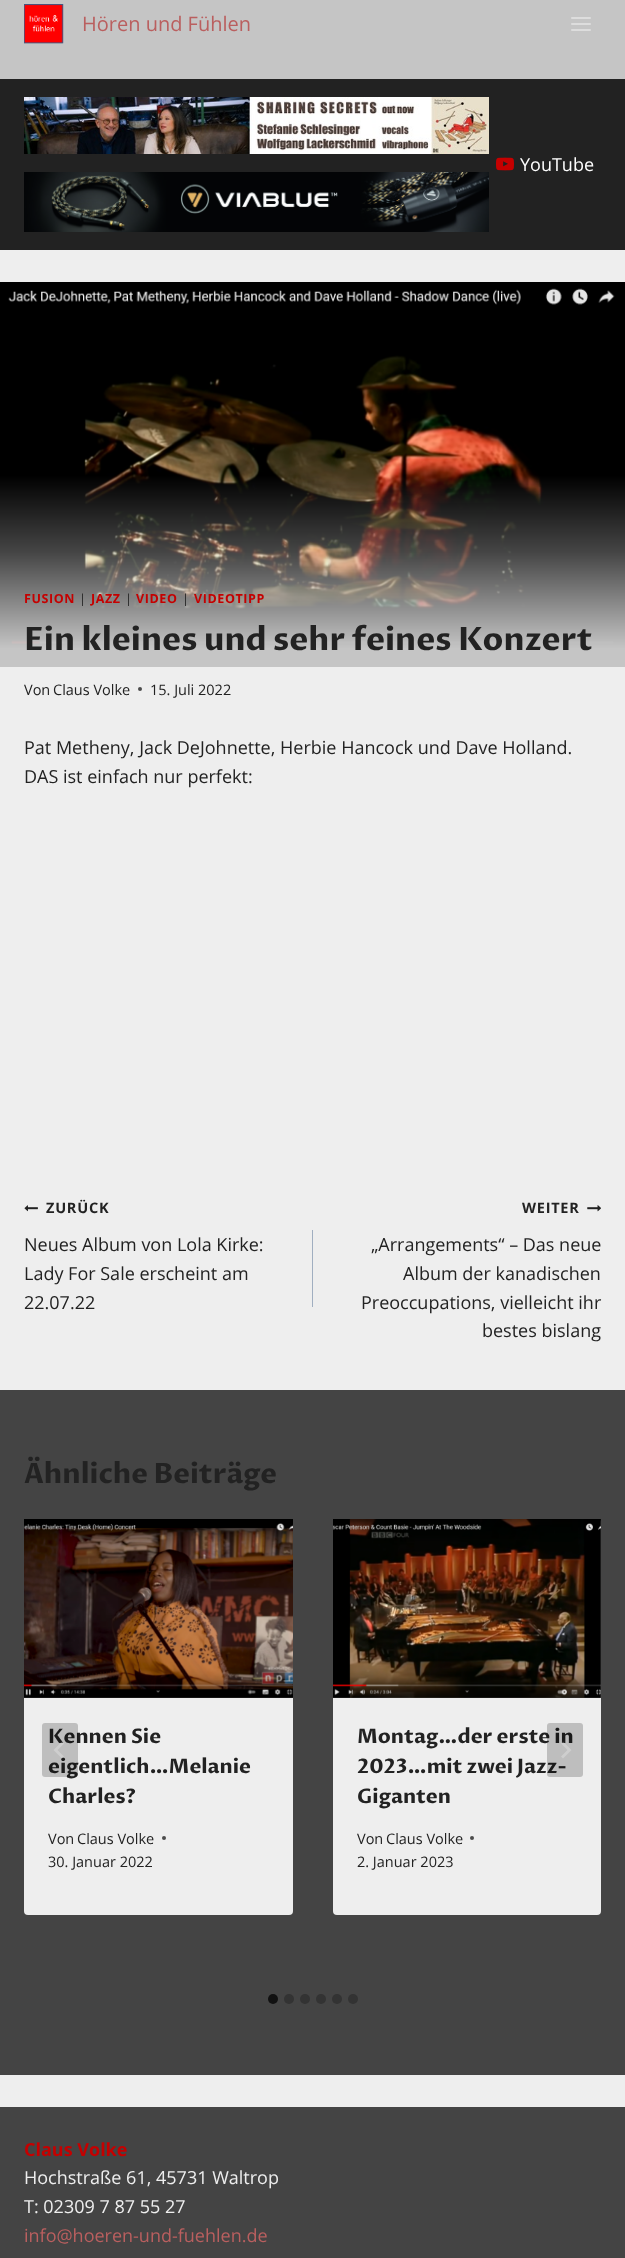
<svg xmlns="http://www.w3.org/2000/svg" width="625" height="2258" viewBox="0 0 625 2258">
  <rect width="100%" height="100%" fill="#eeeeee"/>
  <rect x="0" y="0" width="625" height="79" fill="#c5c5c5"/>
  <image x="24" y="4" width="40" height="40" href="img1.png"/>
  <text x="82" y="31" font-family="Open Sans" font-size="20" fill="#ba5f5f">Hören und Fühlen</text>
  <image x="571" y="17" width="20" height="14" href="img2.png"/>
  <rect x="0" y="79" width="625" height="171" fill="#222222"/>
  <image x="24" y="97" width="465" height="57" href="img3.png"/>
  <image x="24" y="172" width="465" height="60" href="img4.png"/>
  <image x="496" y="157" width="18" height="14" href="img5.png"/>
  <text x="520" y="171" font-family="Open Sans" font-size="18" fill="#ffffff">YouTube</text>
  <image x="0" y="282" width="625" height="385" href="img6.png"/>
  <text x="24" y="603" font-family="Open Sans" font-size="12.5" font-weight="bold" letter-spacing="0.6" fill="#c50000">FUSION</text>
  <text x="79" y="603" font-family="Open Sans" font-size="12.5" letter-spacing="0.6" fill="#222222">|</text>
  <text x="91" y="603" font-family="Open Sans" font-size="12.5" font-weight="bold" letter-spacing="0.6" fill="#c50000">JAZZ</text>
  <text x="125" y="603" font-family="Open Sans" font-size="12.5" letter-spacing="0.6" fill="#222222">|</text>
  <text x="136" y="603" font-family="Open Sans" font-size="12.5" font-weight="bold" letter-spacing="0.6" fill="#c50000">VIDEO</text>
  <text x="182" y="603" font-family="Open Sans" font-size="12.5" letter-spacing="0.6" fill="#222222">|</text>
  <text x="194" y="603" font-family="Open Sans" font-size="12.5" font-weight="bold" letter-spacing="0.6" fill="#c50000">VIDEOTIPP</text>
  <text x="24" y="650" font-family="Proza Libre" font-size="32" font-weight="bold" fill="#222222">Ein kleines und sehr feines Konzert</text>
  <text x="24" y="695" font-family="Open Sans" font-size="14.5" fill="#222222">Von</text>
  <text x="53" y="695" font-family="Open Sans" font-size="14.5" fill="#222222">Claus Volke</text>
  <circle cx="140" cy="689" r="2" fill="#4b4b4b"/>
  <text x="150" y="695" font-family="Open Sans" font-size="14.5" fill="#222222">15. Juli 2022</text>
  <text x="24" y="754" font-family="Open Sans" font-size="18" fill="#222222">Pat Metheny, Jack DeJohnette, Herbie Hancock und Dave Holland.</text>
  <text x="24" y="783" font-family="Open Sans" font-size="18" fill="#222222">DAS ist einfach nur perfekt:</text>
  <image x="24" y="1205" width="14" height="7" href="img7.png"/>
  <text x="46" y="1213" font-family="Open Sans" font-size="14.5" font-weight="bold" letter-spacing="0.75" fill="#222222">ZURÜCK</text>
  <text x="24" y="1251" font-family="Open Sans" font-size="18" fill="#222222">Neues Album von Lola Kirke:</text>
  <text x="24" y="1280" font-family="Open Sans" font-size="18" fill="#222222">Lady For Sale erscheint am</text>
  <text x="24" y="1309" font-family="Open Sans" font-size="18" fill="#222222">22.07.22</text>
  <rect x="312" y="1230" width="1" height="77" fill="#a0aec0"/>
  <text x="522" y="1213" font-family="Open Sans" font-size="14.5" font-weight="bold" letter-spacing="0.75" fill="#222222">WEITER</text>
  <image x="587" y="1205" width="14" height="7" href="img8.png"/>
  <text x="371" y="1251" font-family="Open Sans" font-size="18" fill="#222222">„Arrangements“ – Das neue</text>
  <text x="403" y="1280" font-family="Open Sans" font-size="18" fill="#222222">Album der kanadischen</text>
  <text x="361" y="1309" font-family="Open Sans" font-size="18" fill="#222222">Preoccupations, vielleicht ihr</text>
  <text x="482" y="1337" font-family="Open Sans" font-size="18" fill="#222222">bestes bislang</text>
  <rect x="0" y="1390" width="625" height="685" fill="#444444"/>
  <text x="24" y="1483" font-family="Proza Libre" font-size="28" font-weight="bold" fill="#222222">Ähnliche Beiträge</text>
  <rect x="24" y="1519" width="269" height="396" rx="4" fill="#eeeeee"/>
  <text x="48" y="1743" font-family="Proza Libre" font-size="20" font-weight="bold" fill="#222222">Kennen Sie</text>
  <text x="48" y="1773" font-family="Proza Libre" font-size="20" font-weight="bold" fill="#222222">eigentlich…Melanie</text>
  <rect x="42" y="1723" width="36" height="54" rx="3" fill="#000000" fill-opacity="0.2"/>
  <path d="M62 1741.5L64 1743.5L57.5 1750L64 1756.5L62 1758.5L53.5 1750Z" fill="#ffffff" fill-opacity="0.25"/>
  <rect x="333" y="1519" width="268" height="396" rx="4" fill="#eeeeee"/>
  <text x="357" y="1743" font-family="Proza Libre" font-size="20" font-weight="bold" fill="#222222">Montag…der erste in</text>
  <text x="357" y="1773" font-family="Proza Libre" font-size="20" font-weight="bold" fill="#222222">2023…mit zwei Jazz-</text>
  <rect x="547" y="1723" width="36" height="54" rx="3" fill="#000000" fill-opacity="0.2"/>
  <path d="M563 1741.5L561 1743.5L567.5 1750L561 1756.5L563 1758.5L571.5 1750Z" fill="#ffffff" fill-opacity="0.25"/>
  <image x="24" y="1519" width="269" height="179" href="img9.png"/>
  <text x="48" y="1803" font-family="Proza Libre" font-size="20" font-weight="bold" fill="#222222">Charles?</text>
  <text x="48" y="1844" font-family="Open Sans" font-size="14.5" fill="#222222">Von</text>
  <text x="77" y="1844" font-family="Open Sans" font-size="14.5" fill="#222222">Claus Volke</text>
  <circle cx="164" cy="1838" r="2" fill="#4b4b4b"/>
  <text x="48" y="1867" font-family="Open Sans" font-size="14.5" fill="#222222">30. Januar 2022</text>
  <image x="333" y="1519" width="268" height="179" href="img10.png"/>
  <text x="357" y="1803" font-family="Proza Libre" font-size="20" font-weight="bold" fill="#222222">Giganten</text>
  <text x="357" y="1844" font-family="Open Sans" font-size="14.5" fill="#222222">Von</text>
  <text x="386" y="1844" font-family="Open Sans" font-size="14.5" fill="#222222">Claus Volke</text>
  <circle cx="472" cy="1838" r="2" fill="#4b4b4b"/>
  <text x="357" y="1867" font-family="Open Sans" font-size="14.5" fill="#222222">2. Januar 2023</text>
  <circle cx="273" cy="1999" r="5" fill="#111111"/>
  <circle cx="289" cy="1999" r="5" fill="#333333"/>
  <circle cx="305" cy="1999" r="5" fill="#333333"/>
  <circle cx="321" cy="1999" r="5" fill="#333333"/>
  <circle cx="337" cy="1999" r="5" fill="#333333"/>
  <circle cx="353" cy="1999" r="5" fill="#333333"/>
  <rect x="0" y="2107" width="625" height="151" fill="#444444"/>
  <text x="24" y="2156" font-family="Open Sans" font-size="18" font-weight="bold" fill="#c50000">Claus Volke</text>
  <text x="24" y="2184" font-family="Open Sans" font-size="18" fill="#eeeeee">Hochstraße 61, 45731 Waltrop</text>
  <text x="24" y="2213" font-family="Open Sans" font-size="18" fill="#eeeeee">T: 02309 7 87 55 27</text>
  <text x="24" y="2242" font-family="Open Sans" font-size="18" fill="#ba5f5f">info@hoeren-und-fuehlen.de</text>
</svg>
